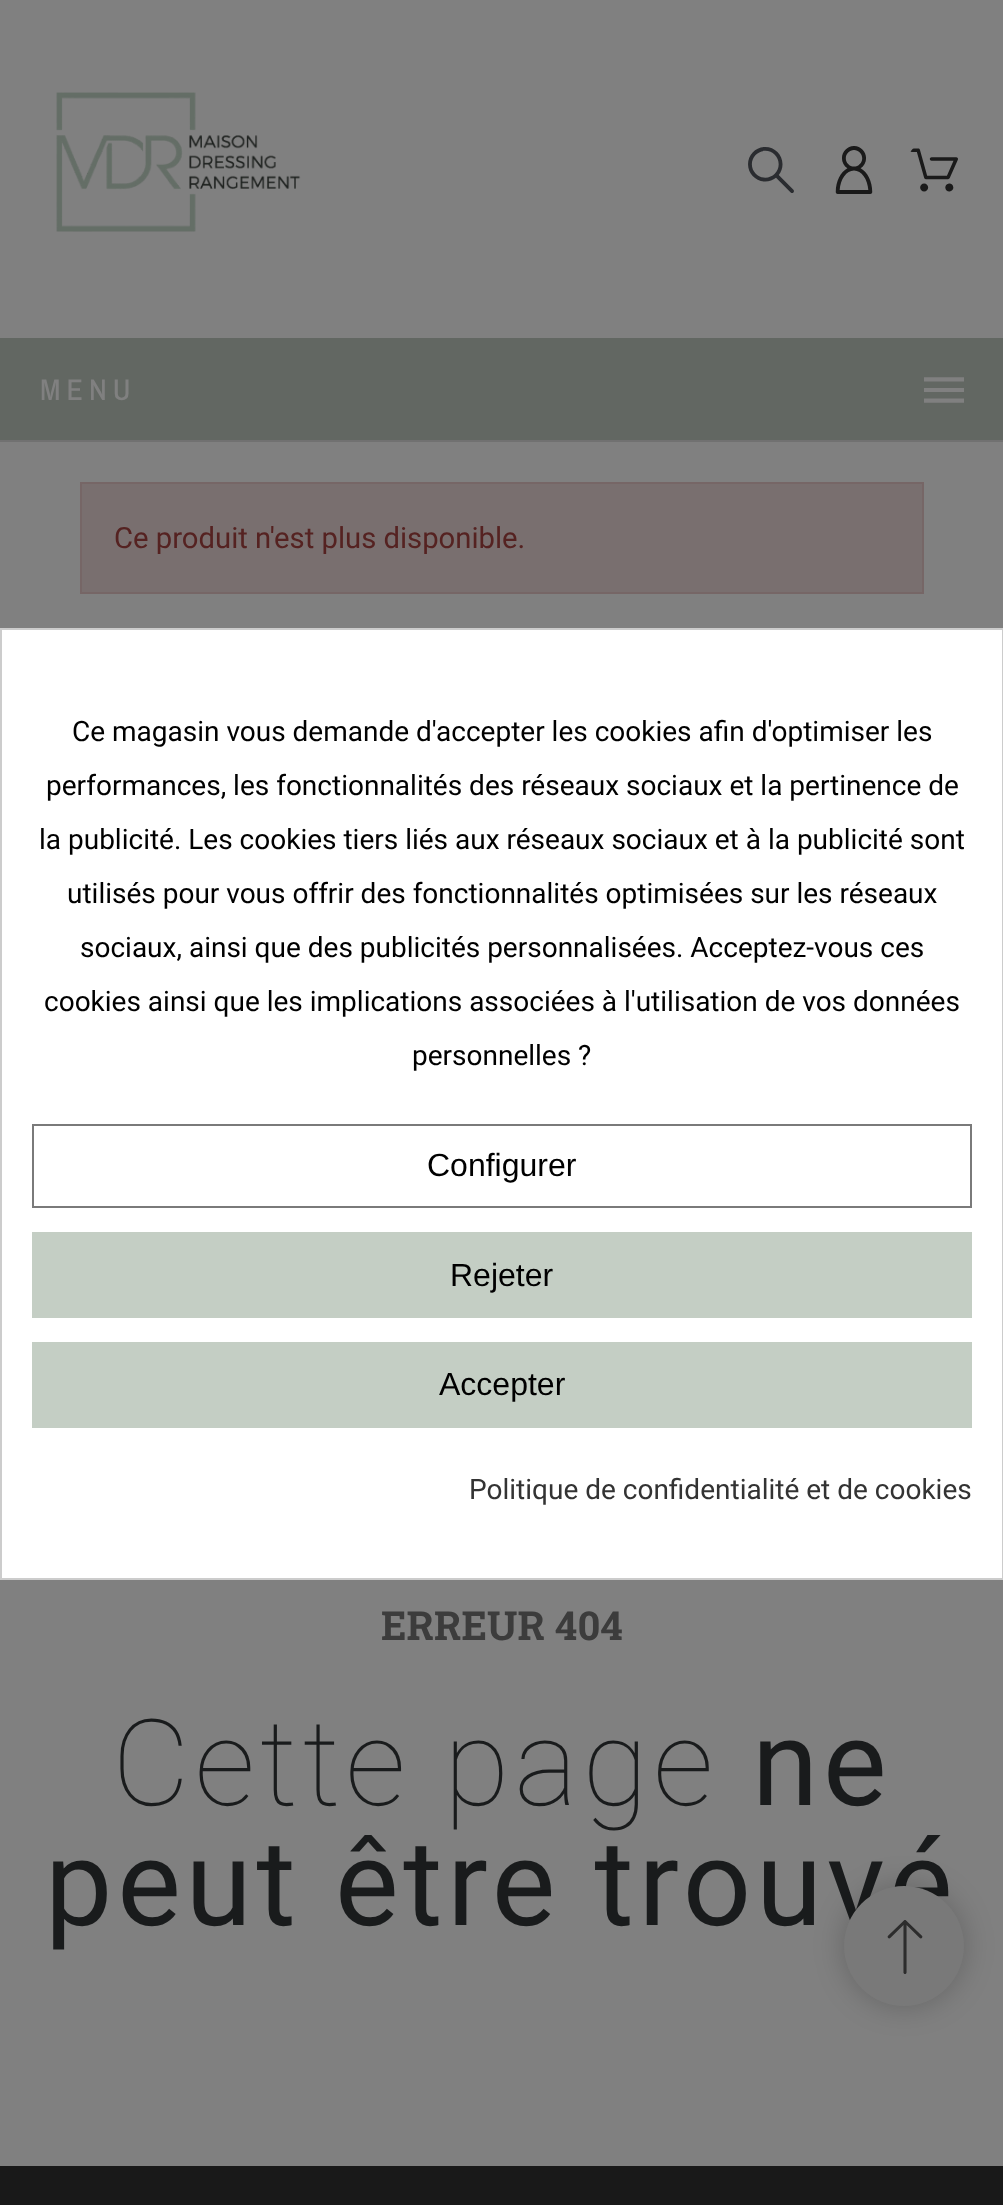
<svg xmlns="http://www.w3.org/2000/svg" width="1003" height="2205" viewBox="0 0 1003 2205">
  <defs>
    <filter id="blur1" x="-50%" y="-200%" width="200%" height="500%"><feGaussianBlur stdDeviation="15"/></filter>
  </defs>
  <rect width="100%" height="100%" fill="#808080"/>
  <rect x="0" y="440" width="1003" height="2" fill="#717171"/>
  <image x="56" y="92" width="245" height="140" href="img1.png"/>
  <image x="748" y="147" width="46" height="46" href="img2.png"/>
  <image x="835" y="146" width="38" height="48" href="img3.png"/>
  <image x="910" y="148" width="48" height="44" href="img4.png"/>
  <rect x="0" y="338" width="1003" height="102" fill="#626762"/>
  <text x="40" y="400" font-family="Archivo Narrow" font-size="30" font-weight="500" letter-spacing="6" fill="#808080">MENU</text>
  <image x="924" y="377" width="40" height="26" href="img5.png"/>
  <rect x="81" y="483" width="842" height="110" fill="#796f6f" stroke="#766666" stroke-width="2"/>
  <text x="114" y="548" font-family="Roboto" font-size="29.25" fill="#552221">Ce produit n'est plus disponible.</text>
  <text x="381" y="1640" font-family="Roboto Slab" font-size="40" font-weight="bold" fill="#3c3c3c">ERREUR 404</text>
  <text x="112" y="1805" font-family="Roboto" font-size="120" font-weight="100" letter-spacing="4.75" fill="#191b1c">Cette page</text>
  <text x="752" y="1805" font-family="Roboto" font-size="120" letter-spacing="4.75" fill="#191b1c">ne</text>
  <text x="45" y="1925" font-family="Roboto" font-size="120" letter-spacing="4.75" fill="#191b1c">peut être trouvé</text>
  <rect x="1" y="629" width="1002" height="950" fill="#ffffff" stroke="#cccccc" stroke-width="2"/>
  <text x="72" y="741" font-family="Roboto" font-size="28" fill="#000000">Ce magasin vous demande d'accepter les cookies afin d'optimiser les</text>
  <text x="46" y="795" font-family="Roboto" font-size="28" fill="#000000">performances, les fonctionnalités des réseaux sociaux et la pertinence de</text>
  <text x="39" y="849" font-family="Roboto" font-size="28" fill="#000000">la publicité. Les cookies tiers liés aux réseaux sociaux et à la publicité sont</text>
  <text x="67" y="903" font-family="Roboto" font-size="28" fill="#000000">utilisés pour vous offrir des fonctionnalités optimisées sur les réseaux</text>
  <text x="80" y="957" font-family="Roboto" font-size="28" fill="#000000">sociaux, ainsi que des publicités personnalisées. Acceptez-vous ces</text>
  <text x="44" y="1011" font-family="Roboto" font-size="28" fill="#000000">cookies ainsi que les implications associées à l'utilisation de vos données</text>
  <text x="412" y="1065" font-family="Roboto" font-size="28" fill="#000000">personnelles ?</text>
  <rect x="33" y="1125" width="938" height="82" fill="none" stroke="#7a7a7a" stroke-width="2"/>
  <text x="427" y="1176" font-family="Liberation Sans" font-size="32" fill="#000000">Configurer</text>
  <rect x="32" y="1232" width="940" height="86" fill="#c4cec4"/>
  <text x="450" y="1286" font-family="Liberation Sans" font-size="32" fill="#000000">Rejeter</text>
  <rect x="32" y="1342" width="940" height="86" fill="#c4cec4"/>
  <text x="439" y="1395" font-family="Liberation Sans" font-size="32" fill="#000000">Accepter</text>
  <text x="469" y="1499" font-family="Roboto" font-size="28" fill="#333333">Politique de confidentialité et de cookies</text>
  <rect x="844" y="1886" width="120" height="120" rx="60" fill="#000000" fill-opacity="0.22" filter="url(#blur1)"/>
  <circle cx="904" cy="1946" r="60" fill="#797979"/>
  <image x="887" y="1920" width="36" height="54" href="img6.png"/>
  <rect x="0" y="2166" width="1003" height="39" fill="#191919"/>
</svg>
